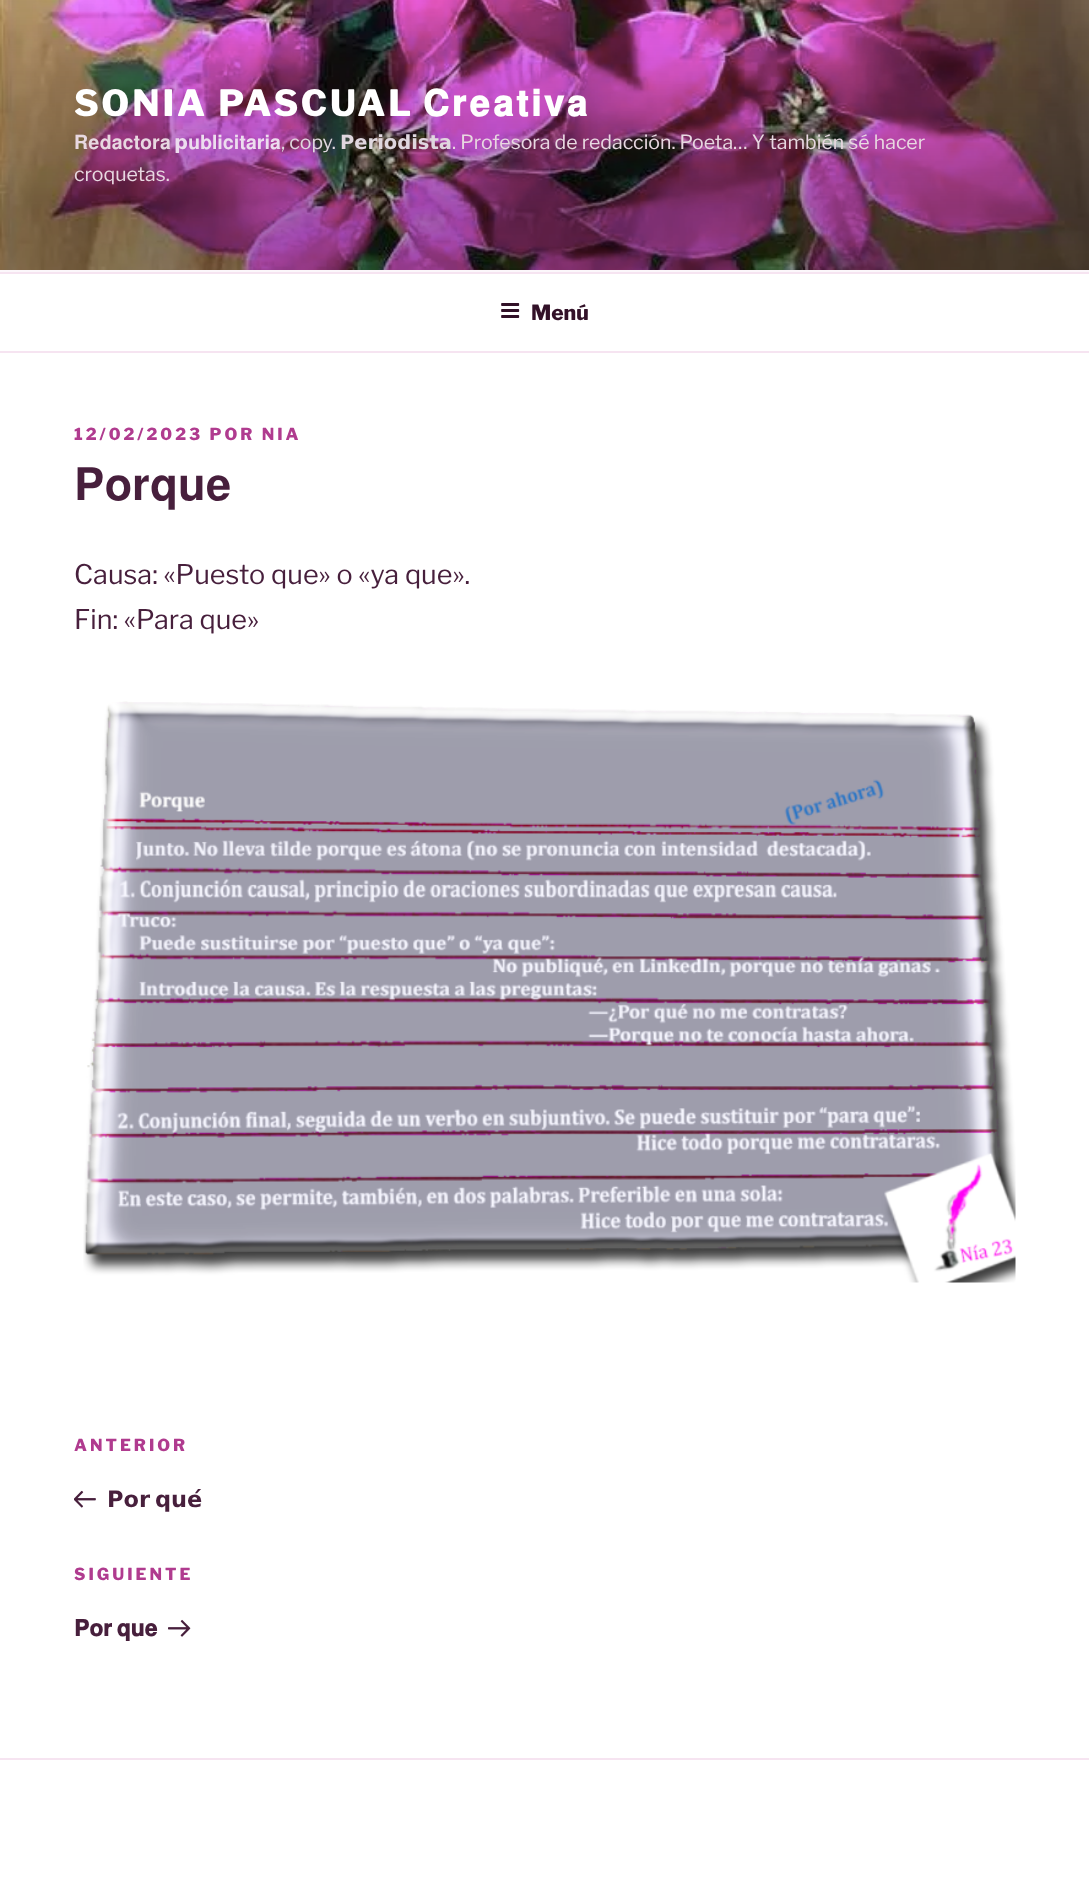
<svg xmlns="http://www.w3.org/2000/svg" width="1089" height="1878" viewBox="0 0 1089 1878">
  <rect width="100%" height="100%" fill="#ffffff"/>
  <rect x="0" y="270" width="1089" height="2" fill="#fcf7fb"/>
  <image x="0" y="0" width="1089" height="270" href="img1.png"/>
  <text x="74" y="116" font-family="Libre Franklin" font-size="36" font-weight="100" letter-spacing="2.9" fill="#ffffff">SONIA PASCUAL</text>
  <text x="423" y="116" font-family="FreeSans" font-size="36" font-weight="bold" letter-spacing="2.9" fill="#ffffff">𝐂𝐫𝐞𝐚𝐭𝐢𝐯𝐚</text>
  <text x="74" y="149" font-family="FreeSans" font-size="19.5" fill="#e8d8e1">𝐑𝐞𝐝𝐚𝐜𝐭𝐨𝐫𝐚</text>
  <text x="174" y="149" font-family="DejaVu Sans" font-size="19.5" font-weight="bold" fill="#edddef">𝗽</text>
  <text x="188" y="149" font-family="FreeSans" font-size="19.5" fill="#edddef">𝐮𝐛𝐥𝐢𝐜𝐢𝐭𝐚𝐫𝐢𝐚</text>
  <text x="281" y="149" font-family="'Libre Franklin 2'" font-size="19.5" font-weight="100" fill="#e0d7df">, copy.</text>
  <text x="340" y="149" font-family="DejaVu Sans" font-size="19.5" font-weight="bold" fill="#e0d7df">𝗣𝗲𝗿𝗶𝗼𝗱𝗶𝘀𝘁𝗮</text>
  <text x="452" y="149" font-family="'Libre Franklin 2'" font-size="19.5" font-weight="100" fill="#e8d8e1">. Profesora de redacción. Poeta… Y también sé hacer</text>
  <text x="74" y="181" font-family="'Libre Franklin 2'" font-size="19.5" font-weight="100" fill="#e8d8e1">croquetas.</text>
  <rect x="0" y="272" width="1089" height="2" fill="#f6e4f1"/>
  <rect x="0" y="351" width="1089" height="2" fill="#f6e4f1"/>
  <image x="501" y="303" width="19" height="15" href="img2.png"/>
  <text x="531" y="320" font-family="Libre Franklin" font-size="21" font-weight="100" fill="#321128">Menú</text>
  <text x="74" y="440" font-family="Libre Franklin" font-size="16.5" font-weight="100" letter-spacing="3" fill="#b03b8f">12/02/2023 POR NIA</text>
  <text x="74" y="500" font-family="FreeSans" font-size="45" fill="#471f3c">𝐏𝐨𝐫𝐪𝐮𝐞</text>
  <text x="74" y="584" font-family="'Libre Franklin 2'" font-size="27" font-weight="100" fill="#471f3c">Causa: «Puesto que» o «ya que».</text>
  <text x="74" y="629" font-family="'Libre Franklin 2'" font-size="27" font-weight="100" fill="#471f3c">Fin: «Para que»</text>
  <image x="83" y="701" width="933" height="582" href="img3.png"/>
  <text x="74" y="1451" font-family="Libre Franklin" font-size="16.5" font-weight="100" letter-spacing="3" fill="#b03b8f">ANTERIOR</text>
  <image x="74" y="1490" width="22" height="18" href="img4.png"/>
  <text x="107" y="1507" word-spacing="-3" font-family="DejaVu Sans" font-size="22.5" font-weight="bold" fill="#471f3c">𝗣𝗼𝗿 𝗾𝘂𝗲́</text>
  <text x="74" y="1580" font-family="Libre Franklin" font-size="16.5" font-weight="100" letter-spacing="3" fill="#b03b8f">SIGUIENTE</text>
  <text x="74" y="1636" word-spacing="-1" font-family="FreeSans" font-size="22.5" font-weight="bold" fill="#471f3c">𝐏𝐨𝐫 𝐪𝐮𝐞</text>
  <image x="168" y="1619" width="23" height="18" href="img5.png"/>
  <rect x="0" y="1758" width="1089" height="2" fill="#f6e4f1"/>
</svg>
